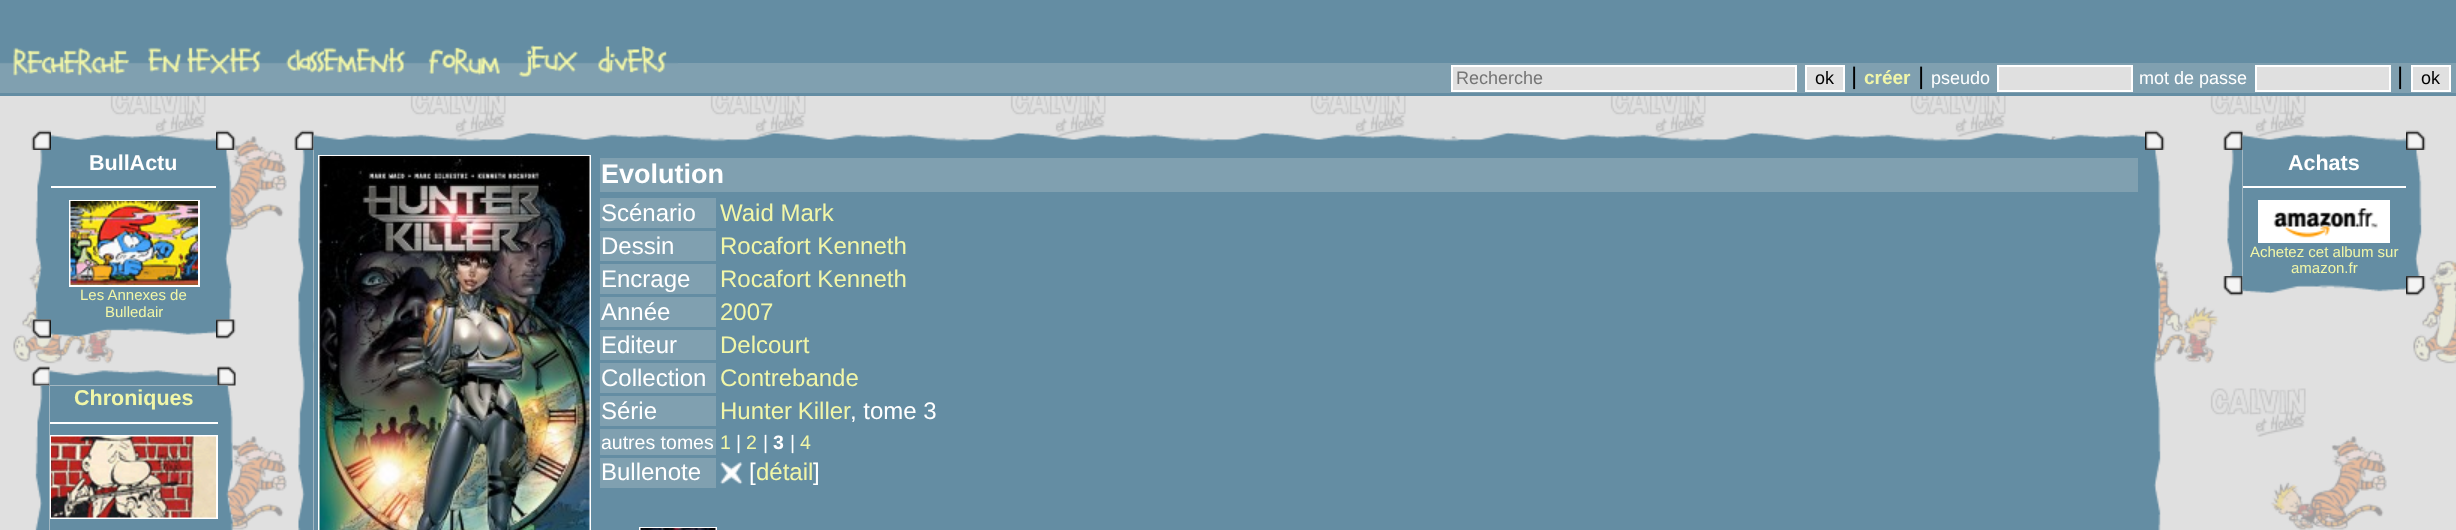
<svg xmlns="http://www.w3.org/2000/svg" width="2456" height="530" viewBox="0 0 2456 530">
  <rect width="100%" height="100%" fill="#e0e0e0"/>
  <image x="13" y="96" width="2443" height="434" href="img1.png"/>
  <rect x="0" y="0" width="2456" height="60" fill="#648da3"/>
  <rect x="0" y="63" width="2456" height="30" fill="#80a0b0"/>
  <image x="0" y="47" width="138" height="29" href="img2.png"/>
  <image x="138" y="47" width="135" height="28" href="img3.png"/>
  <image x="273" y="47" width="144" height="26" href="img4.png"/>
  <image x="417" y="47" width="93" height="29" href="img5.png"/>
  <image x="510" y="45" width="78" height="32" href="img6.png"/>
  <image x="588" y="46" width="90" height="28" href="img7.png"/>
  <rect x="678" y="60" width="1778" height="3" fill="#648da3"/>
  <rect x="0" y="93" width="2456" height="3" fill="#648da3"/>
  <rect x="1452" y="66" width="344" height="25" fill="#e0e0e0" stroke="#ffffff" stroke-width="2"/>
  <text x="1456" y="84" font-family="Liberation Sans" font-size="18" fill="#757575">Recherche</text>
  <rect x="1806" y="66" width="38" height="25" fill="#e0e0e0" stroke="#ffffff" stroke-width="2"/>
  <text x="1815" y="84" font-family="Liberation Sans" font-size="18" fill="#000000">ok</text>
  <text x="1851" y="84" font-family="Liberation Sans" font-size="24" fill="#000000">|</text>
  <text x="1864" y="84" font-family="Liberation Sans" font-size="19" font-weight="bold" fill="#f1f6a8">créer</text>
  <text x="1918" y="84" font-family="Liberation Sans" font-size="24" fill="#000000">|</text>
  <text x="1931" y="84" font-family="Liberation Sans" font-size="18" fill="#ffffff">pseudo</text>
  <rect x="1998" y="66" width="134" height="25" fill="#e0e0e0" stroke="#ffffff" stroke-width="2"/>
  <text x="2139" y="84" font-family="Liberation Sans" font-size="18" fill="#ffffff">mot de passe</text>
  <rect x="2256" y="66" width="134" height="25" fill="#e0e0e0" stroke="#ffffff" stroke-width="2"/>
  <text x="2397" y="84" font-family="Liberation Sans" font-size="24" fill="#000000">|</text>
  <rect x="2412" y="66" width="38" height="25" fill="#e0e0e0" stroke="#ffffff" stroke-width="2"/>
  <text x="2421" y="84" font-family="Liberation Sans" font-size="18" fill="#000000">ok</text>
  <image x="31" y="130" width="20" height="20" href="img8.png"/>
  <image x="51" y="134" width="165" height="16" href="img9.png"/>
  <image x="216" y="130" width="20" height="20" href="img10.png"/>
  <image x="35" y="150" width="16" height="170" href="img11.png"/>
  <rect x="51" y="150" width="165" height="170" fill="#648da3"/>
  <text x="89" y="170" font-family="Liberation Sans" font-size="21.5" font-weight="bold" fill="#ffffff">BullActu</text>
  <rect x="51" y="186" width="165" height="2" fill="#ffffff"/>
  <rect x="70" y="201" width="129" height="85" fill="none" stroke="#ffffff" stroke-width="2"/>
  <image x="70" y="201" width="128" height="84" href="img12.png"/>
  <text x="80" y="300" font-family="Liberation Sans" font-size="15" fill="#f1f6a8">Les Annexes de</text>
  <text x="105" y="317" font-family="Liberation Sans" font-size="15" fill="#f1f6a8">Bulledair</text>
  <image x="216" y="150" width="16" height="170" href="img13.png"/>
  <image x="31" y="319" width="20" height="20" href="img14.png"/>
  <image x="51" y="320" width="165" height="18" href="img15.png"/>
  <image x="216" y="319" width="20" height="20" href="img16.png"/>
  <image x="31" y="366" width="19" height="20" href="img17.png"/>
  <image x="49" y="370" width="169" height="16" href="img18.png"/>
  <image x="217" y="366" width="19" height="20" href="img19.png"/>
  <image x="35" y="385" width="15" height="145" href="img20.png"/>
  <rect x="50" y="386" width="168" height="144" fill="#648da3"/>
  <text x="74" y="405" font-family="Liberation Sans" font-size="21.5" font-weight="bold" fill="#f1f6a8">Chroniques</text>
  <image x="217" y="385" width="16" height="145" href="img22.png"/>
  <rect x="50" y="422" width="168" height="2" fill="#ffffff"/>
  <rect x="51" y="436" width="166" height="82" fill="none" stroke="#ffffff" stroke-width="2"/>
  <image x="51" y="436" width="165" height="82" href="img21.png"/>
  <image x="294" y="130" width="20" height="20" href="img23.png"/>
  <image x="313" y="132" width="1832" height="18" href="img24.png"/>
  <image x="2145" y="130" width="20" height="20" href="img25.png"/>
  <image x="298" y="150" width="16" height="380" href="img26.png"/>
  <rect x="314" y="150" width="1831" height="380" fill="#648da3"/>
  <rect x="319" y="156" width="271" height="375" fill="none" stroke="#ffffff" stroke-width="2"/>
  <image x="319" y="156" width="271" height="374" href="img27.png"/>
  <rect x="600" y="158" width="1538" height="34" fill="#80a0b0"/>
  <text x="601" y="183" font-family="Liberation Sans" font-size="27" font-weight="bold" fill="#ffffff">Evolution</text>
  <rect x="600" y="198" width="116" height="30" fill="#80a0b0"/>
  <text x="601" y="221" font-family="Liberation Sans" font-size="24" fill="#ffffff">Scénario</text>
  <text x="720" y="221" font-family="Liberation Sans" font-size="24" fill="#f1f6a8">Waid Mark</text>
  <rect x="600" y="231" width="116" height="30" fill="#80a0b0"/>
  <text x="601" y="254" font-family="Liberation Sans" font-size="24" fill="#ffffff">Dessin</text>
  <text x="720" y="254" font-family="Liberation Sans" font-size="24" fill="#f1f6a8">Rocafort Kenneth</text>
  <rect x="600" y="264" width="116" height="30" fill="#80a0b0"/>
  <text x="601" y="287" font-family="Liberation Sans" font-size="24" fill="#ffffff">Encrage</text>
  <text x="720" y="287" font-family="Liberation Sans" font-size="24" fill="#f1f6a8">Rocafort Kenneth</text>
  <rect x="600" y="297" width="116" height="30" fill="#80a0b0"/>
  <text x="601" y="320" font-family="Liberation Sans" font-size="24" fill="#ffffff">Année</text>
  <text x="720" y="320" font-family="Liberation Sans" font-size="24" fill="#f1f6a8">2007</text>
  <rect x="600" y="330" width="116" height="30" fill="#80a0b0"/>
  <text x="601" y="353" font-family="Liberation Sans" font-size="24" fill="#ffffff">Editeur</text>
  <text x="720" y="353" font-family="Liberation Sans" font-size="24" fill="#f1f6a8">Delcourt</text>
  <rect x="600" y="363" width="116" height="30" fill="#80a0b0"/>
  <text x="601" y="386" font-family="Liberation Sans" font-size="24" fill="#ffffff">Collection</text>
  <text x="720" y="386" font-family="Liberation Sans" font-size="24" fill="#f1f6a8">Contrebande</text>
  <rect x="600" y="396" width="116" height="30" fill="#80a0b0"/>
  <text x="601" y="419" font-family="Liberation Sans" font-size="24" fill="#ffffff">Série</text>
  <text x="720" y="419" word-spacing="-1" font-family="Liberation Sans" font-size="24" fill="#f1f6a8">Hunter Killer</text>
  <text x="850" y="419" font-family="Liberation Sans" font-size="24" fill="#ffffff">, tome 3</text>
  <rect x="600" y="429" width="116" height="26" fill="#80a0b0"/>
  <text x="601" y="449" font-family="Liberation Sans" font-size="19.5" fill="#ffffff">autres tomes</text>
  <text x="720" y="449" font-family="Liberation Sans" font-size="19.5" fill="#f1f6a8">1</text>
  <text x="736" y="449" font-family="Liberation Sans" font-size="19.5" fill="#ffffff">|</text>
  <text x="746" y="449" font-family="Liberation Sans" font-size="19.5" fill="#f1f6a8">2</text>
  <text x="763" y="449" font-family="Liberation Sans" font-size="19.5" fill="#ffffff">|</text>
  <text x="773" y="449" font-family="Liberation Sans" font-size="19.5" font-weight="bold" fill="#ffffff">3</text>
  <text x="790" y="449" font-family="Liberation Sans" font-size="19.5" fill="#ffffff">|</text>
  <text x="800" y="449" font-family="Liberation Sans" font-size="19.5" fill="#f1f6a8">4</text>
  <rect x="600" y="458" width="116" height="30" fill="#80a0b0"/>
  <text x="601" y="480" font-family="Liberation Sans" font-size="24" fill="#ffffff">Bullenote</text>
  <image x="720" y="462" width="23" height="23" href="img28.png"/>
  <text x="749" y="480" font-family="Liberation Sans" font-size="24" fill="#ffffff">[</text>
  <text x="756" y="480" font-family="Liberation Sans" font-size="24" fill="#f1f6a8">détail</text>
  <text x="813" y="480" font-family="Liberation Sans" font-size="24" fill="#ffffff">]</text>
  <rect x="640" y="528" width="76" height="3" fill="none" stroke="#ffffff" stroke-width="2"/>
  <image x="640" y="528" width="76" height="2" href="img29.png"/>
  <image x="2145" y="150" width="16" height="380" href="img30.png"/>
  <image x="2223" y="130" width="20" height="20" href="img31.png"/>
  <image x="2242" y="134" width="164" height="16" href="img32.png"/>
  <image x="2406" y="130" width="20" height="20" href="img25.png"/>
  <image x="2227" y="150" width="16" height="126" href="img33.png"/>
  <rect x="2243" y="150" width="163" height="126" fill="#648da3"/>
  <text x="2288" y="170" font-family="Liberation Sans" font-size="21.5" font-weight="bold" fill="#ffffff">Achats</text>
  <rect x="2243" y="186" width="163" height="2" fill="#ffffff"/>
  <rect x="2259" y="201" width="130" height="41" fill="none" stroke="#ffffff" stroke-width="2"/>
  <image x="2260" y="202" width="128" height="39" href="img34.png"/>
  <text x="2250" y="257" font-family="Liberation Sans" font-size="15" fill="#f1f6a8">Achetez cet album sur</text>
  <text x="2291" y="273" font-family="Liberation Sans" font-size="15" fill="#f1f6a8">amazon.fr</text>
  <image x="2406" y="150" width="16" height="126" href="img35.png"/>
  <image x="2223" y="276" width="20" height="20" href="img36.png"/>
  <image x="2242" y="276" width="164" height="18" href="img37.png"/>
  <image x="2406" y="276" width="20" height="20" href="img38.png"/>
</svg>
